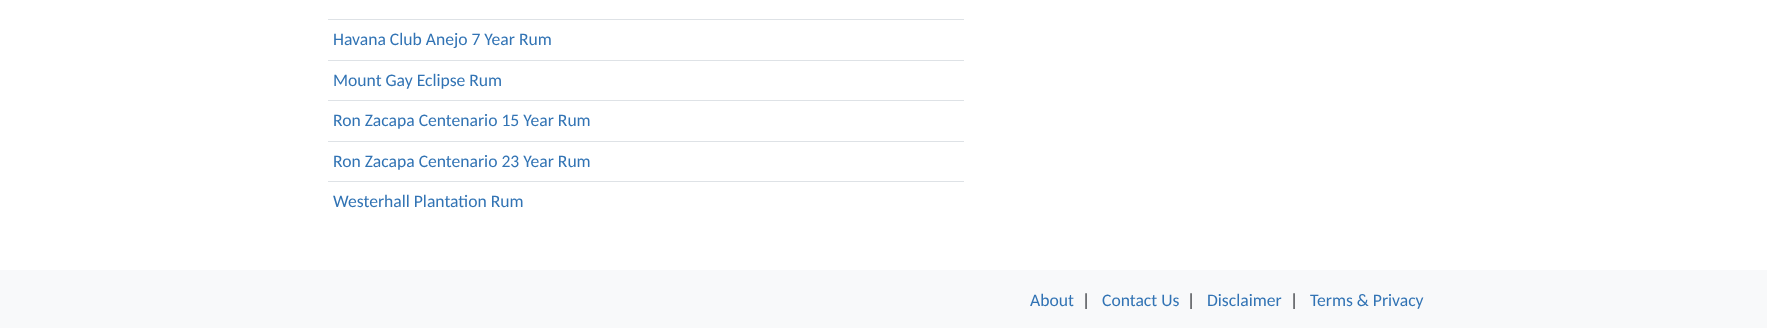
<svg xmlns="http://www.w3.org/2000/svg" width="1767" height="328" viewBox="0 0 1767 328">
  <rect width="100%" height="100%" fill="#ffffff"/>
  <rect x="328" y="19" width="636" height="1" fill="#dee2e6"/>
  <text x="333" y="45" font-family="Carlito" font-size="17.6" fill="#3173b4">Havana Club Anejo 7 Year Rum</text>
  <rect x="328" y="60" width="636" height="1" fill="#dee2e6"/>
  <text x="333" y="86" font-family="Carlito" font-size="17.6" fill="#3173b4">Mount Gay Eclipse Rum</text>
  <rect x="328" y="100" width="636" height="1" fill="#dee2e6"/>
  <text x="333" y="126" font-family="Carlito" font-size="17.6" fill="#3173b4">Ron Zacapa Centenario 15 Year Rum</text>
  <rect x="328" y="141" width="636" height="1" fill="#dee2e6"/>
  <text x="333" y="167" font-family="Carlito" font-size="17.6" fill="#3173b4">Ron Zacapa Centenario 23 Year Rum</text>
  <rect x="328" y="181" width="636" height="1" fill="#dee2e6"/>
  <text x="333" y="207" font-family="Carlito" font-size="17.6" fill="#3173b4">Westerhall Plantation Rum</text>
  <rect x="0" y="270" width="1767" height="58" fill="#f8f9fa"/>
  <text x="1030" y="306" font-family="Carlito" font-size="17.6" fill="#3173b4">About</text>
  <text x="1082" y="306" font-family="Carlito" font-size="17.6" fill="#212529">|</text>
  <text x="1102" y="306" font-family="Carlito" font-size="17.6" fill="#3173b4">Contact Us</text>
  <text x="1187" y="306" font-family="Carlito" font-size="17.6" fill="#212529">|</text>
  <text x="1207" y="306" font-family="Carlito" font-size="17.6" fill="#3173b4">Disclaimer</text>
  <text x="1290" y="306" font-family="Carlito" font-size="17.6" fill="#212529">|</text>
  <text x="1310" y="306" font-family="Carlito" font-size="17.6" fill="#3173b4">Terms &amp; Privacy</text>
</svg>
